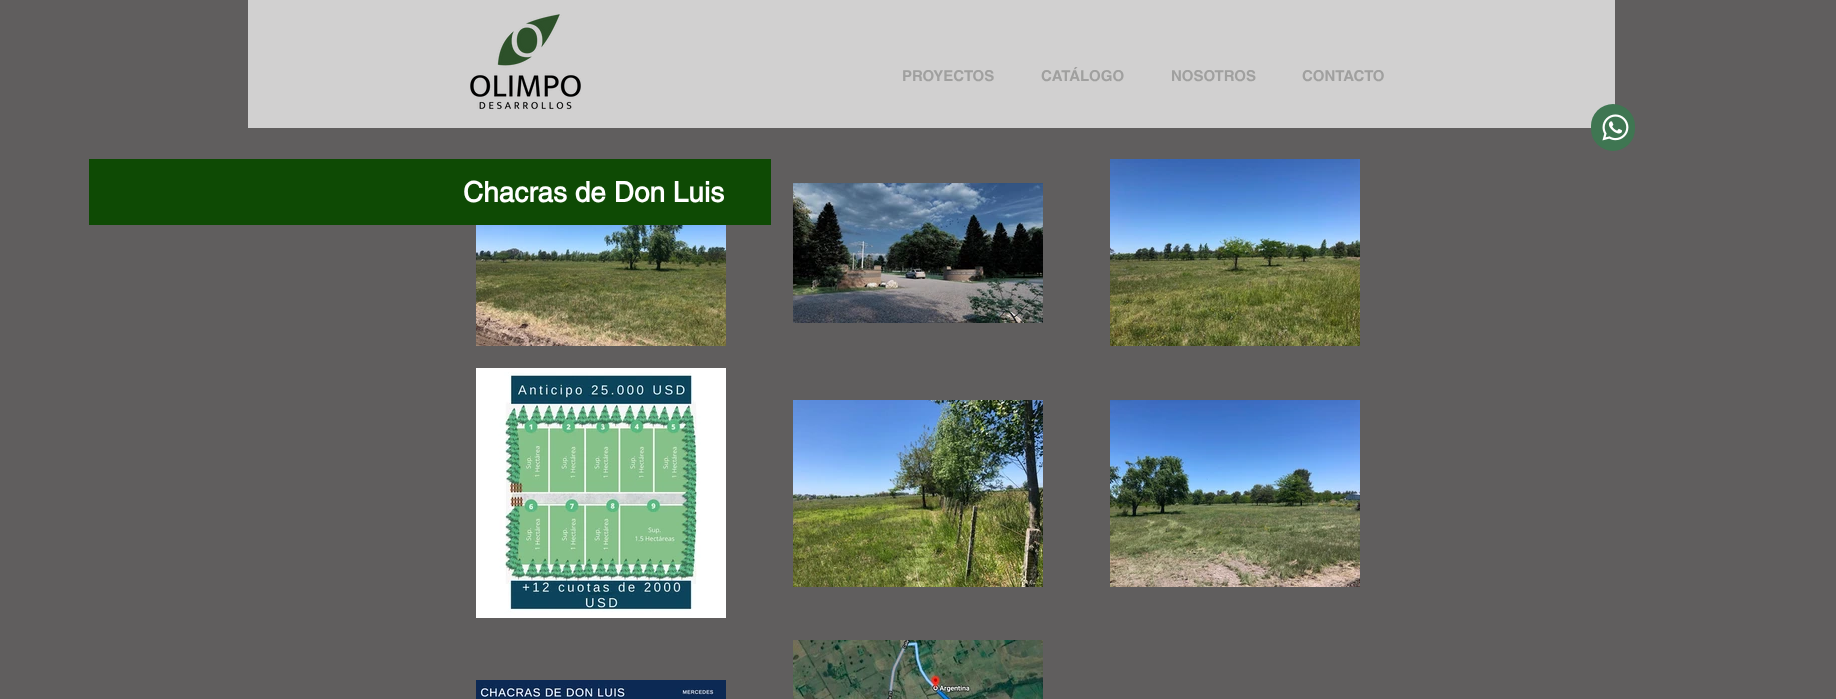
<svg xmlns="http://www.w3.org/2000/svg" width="1836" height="699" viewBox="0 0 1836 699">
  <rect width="100%" height="100%" fill="#605e5e"/>
  <rect x="248" y="0" width="1367" height="128" fill="#d1d0d0"/>
  <image x="470" y="14" width="111" height="96" href="img1.png"/>
  <text x="902" y="81" font-family="'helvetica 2'" font-size="15" font-weight="bold" fill="#a0a09f">PROYECTOS</text>
  <text x="1041" y="81" font-family="'helvetica 2'" font-size="15" font-weight="bold" fill="#a0a09f">CATÁLOGO</text>
  <text x="1171" y="81" font-family="'helvetica 2'" font-size="15" font-weight="bold" fill="#a0a09f">NOSOTROS</text>
  <text x="1302" y="81" font-family="'helvetica 2'" font-size="15" font-weight="bold" fill="#a0a09f">CONTACTO</text>
  <rect x="1591" y="104" width="44" height="47" rx="22" fill="#3f7652"/>
  <image x="1602" y="114" width="27" height="27" href="img2.png"/>
  <image x="476" y="225" width="250" height="121" href="img3.png"/>
  <image x="793" y="183" width="250" height="140" href="img4.png"/>
  <image x="1110" y="159" width="250" height="187" href="img5.png"/>
  <image x="476" y="368" width="250" height="250" href="img6.png"/>
  <image x="793" y="400" width="250" height="187" href="img7.png"/>
  <image x="1110" y="400" width="250" height="187" href="img8.png"/>
  <image x="476" y="680" width="250" height="19" href="img9.png"/>
  <image x="793" y="640" width="250" height="59" href="img10.png"/>
  <rect x="89" y="159" width="682" height="66" fill="#0e4a04"/>
  <text x="463" y="202" font-family="helvetica" font-size="28" font-weight="bold" fill="#ffffff">Chacras de Don Luis</text>
</svg>
